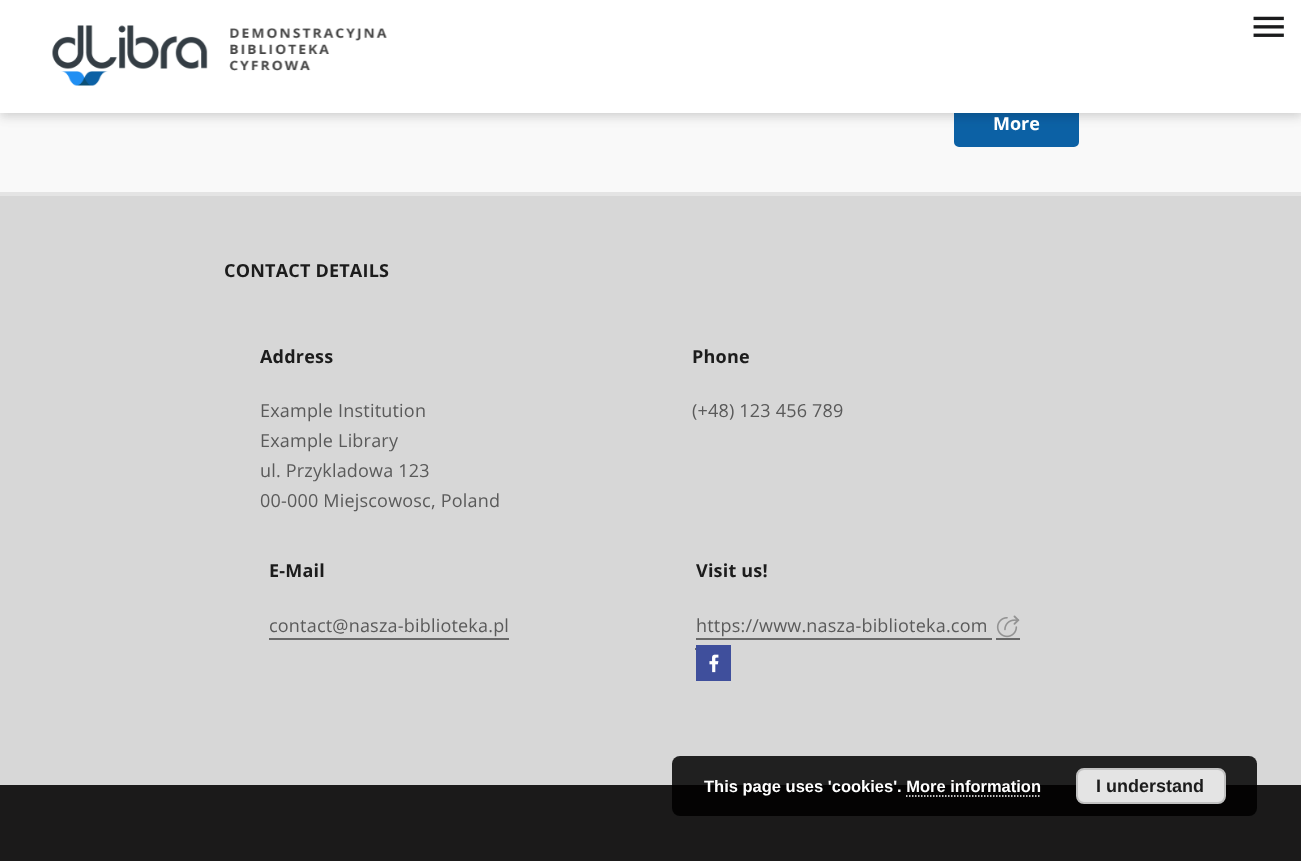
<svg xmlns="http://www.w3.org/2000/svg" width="1301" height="861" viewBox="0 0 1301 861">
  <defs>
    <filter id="blur1" x="-50%" y="-200%" width="200%" height="500%"><feGaussianBlur stdDeviation="7.5"/></filter>
    <filter id="blur2" x="-50%" y="-200%" width="200%" height="500%"><feGaussianBlur stdDeviation="4"/></filter>
    <filter id="blur3" x="-50%" y="-200%" width="200%" height="500%"><feGaussianBlur stdDeviation="3"/></filter>
  </defs>
  <rect width="100%" height="100%" fill="#f9f9f9"/>
  <rect x="955" y="100" width="123" height="46" rx="4" fill="#0c61a5" stroke="#0c61a5" stroke-width="2"/>
  <rect x="0" y="2" width="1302" height="112" fill="#000000" fill-opacity="0.08" filter="url(#blur1)"/>
  <rect x="0" y="6" width="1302" height="113" fill="#000000" fill-opacity="0.06" filter="url(#blur2)"/>
  <rect x="2" y="5" width="1299" height="109" fill="#000000" fill-opacity="0.06" filter="url(#blur3)"/>
  <rect x="0" y="0" width="1301" height="113" fill="#ffffff"/>
  <image x="52" y="25" width="335" height="61" href="img1.png"/>
  <image x="1253" y="16" width="31" height="21" href="img2.png"/>
  <rect x="0" y="192" width="1301" height="4" fill="#e4e4e4"/>
  <text x="993" y="130" font-family="Open Sans" font-size="18" font-weight="bold" fill="#ffffff">More</text>
  <rect x="0" y="196" width="1301" height="589" fill="#d7d7d7"/>
  <text x="224" y="277" font-family="Open Sans" font-size="18" font-weight="bold" letter-spacing="0.2" fill="#1c1c1c">CONTACT DETAILS</text>
  <text x="260" y="363" font-family="Open Sans" font-size="18" font-weight="bold" letter-spacing="0.2" fill="#1c1c1c">Address</text>
  <text x="260" y="417" font-family="Open Sans" font-size="18" letter-spacing="0.2" fill="#5a5a5a">Example Institution</text>
  <text x="260" y="447" font-family="Open Sans" font-size="18" letter-spacing="0.2" fill="#5a5a5a">Example Library</text>
  <text x="260" y="477" font-family="Open Sans" font-size="18" letter-spacing="0.2" fill="#5a5a5a">ul. Przykladowa 123</text>
  <text x="260" y="507" font-family="Open Sans" font-size="18" letter-spacing="0.2" fill="#5a5a5a">00-000 Miejscowosc, Poland</text>
  <text x="692" y="363" font-family="Open Sans" font-size="18" font-weight="bold" letter-spacing="0.2" fill="#1c1c1c">Phone</text>
  <text x="692" y="417" font-family="Open Sans" font-size="18" letter-spacing="0.2" fill="#5a5a5a">(+48) 123 456 789</text>
  <text x="269" y="577" font-family="Open Sans" font-size="18" font-weight="bold" letter-spacing="0.2" fill="#1c1c1c">E-Mail</text>
  <text x="269" y="632" font-family="Open Sans" font-size="18" letter-spacing="0.2" fill="#5a5a5a">contact@nasza-biblioteka.pl</text>
  <rect x="269" y="638" width="240" height="2" fill="#696969"/>
  <text x="696" y="577" font-family="Open Sans" font-size="18" font-weight="bold" letter-spacing="0.2" fill="#1c1c1c">Visit us!</text>
  <text x="696" y="632" font-family="Open Sans" font-size="18" letter-spacing="0.2" fill="#5a5a5a">https://www.nasza-biblioteka.com</text>
  <rect x="696" y="638" width="296" height="2" fill="#696969"/>
  <rect x="996" y="638" width="24" height="2" fill="#696969"/>
  <image x="996" y="615" width="24" height="23" href="img3.png"/>
  <rect x="695" y="648" width="2" height="2" fill="#696969"/>
  <rect x="696" y="645" width="35" height="36" fill="#3f4f9c"/>
  <image x="709" y="654" width="10" height="19" href="img4.png"/>
  <rect x="0" y="785" width="1301" height="76" fill="#1b1a1a"/>
  <rect x="672" y="756" width="585" height="60" rx="8" fill="#000000" fill-opacity="0.85"/>
  <text x="704" y="792" font-family="Liberation Sans" font-size="16.5" font-weight="bold" fill="#ffffff">This page uses 'cookies'. More information</text>
  <rect x="1077" y="769" width="148" height="34" rx="7" fill="#e4e4e4" stroke="#c1c1c1" stroke-width="2"/>
  <text x="1096" y="792" font-family="Liberation Sans" font-size="18" font-weight="bold" fill="#1c1c1c">I understand</text>
  <path d="M906 796H1041" fill="none" stroke="#ffffff" stroke-width="1.5" stroke-dasharray="1.5 1.5"/>
</svg>
